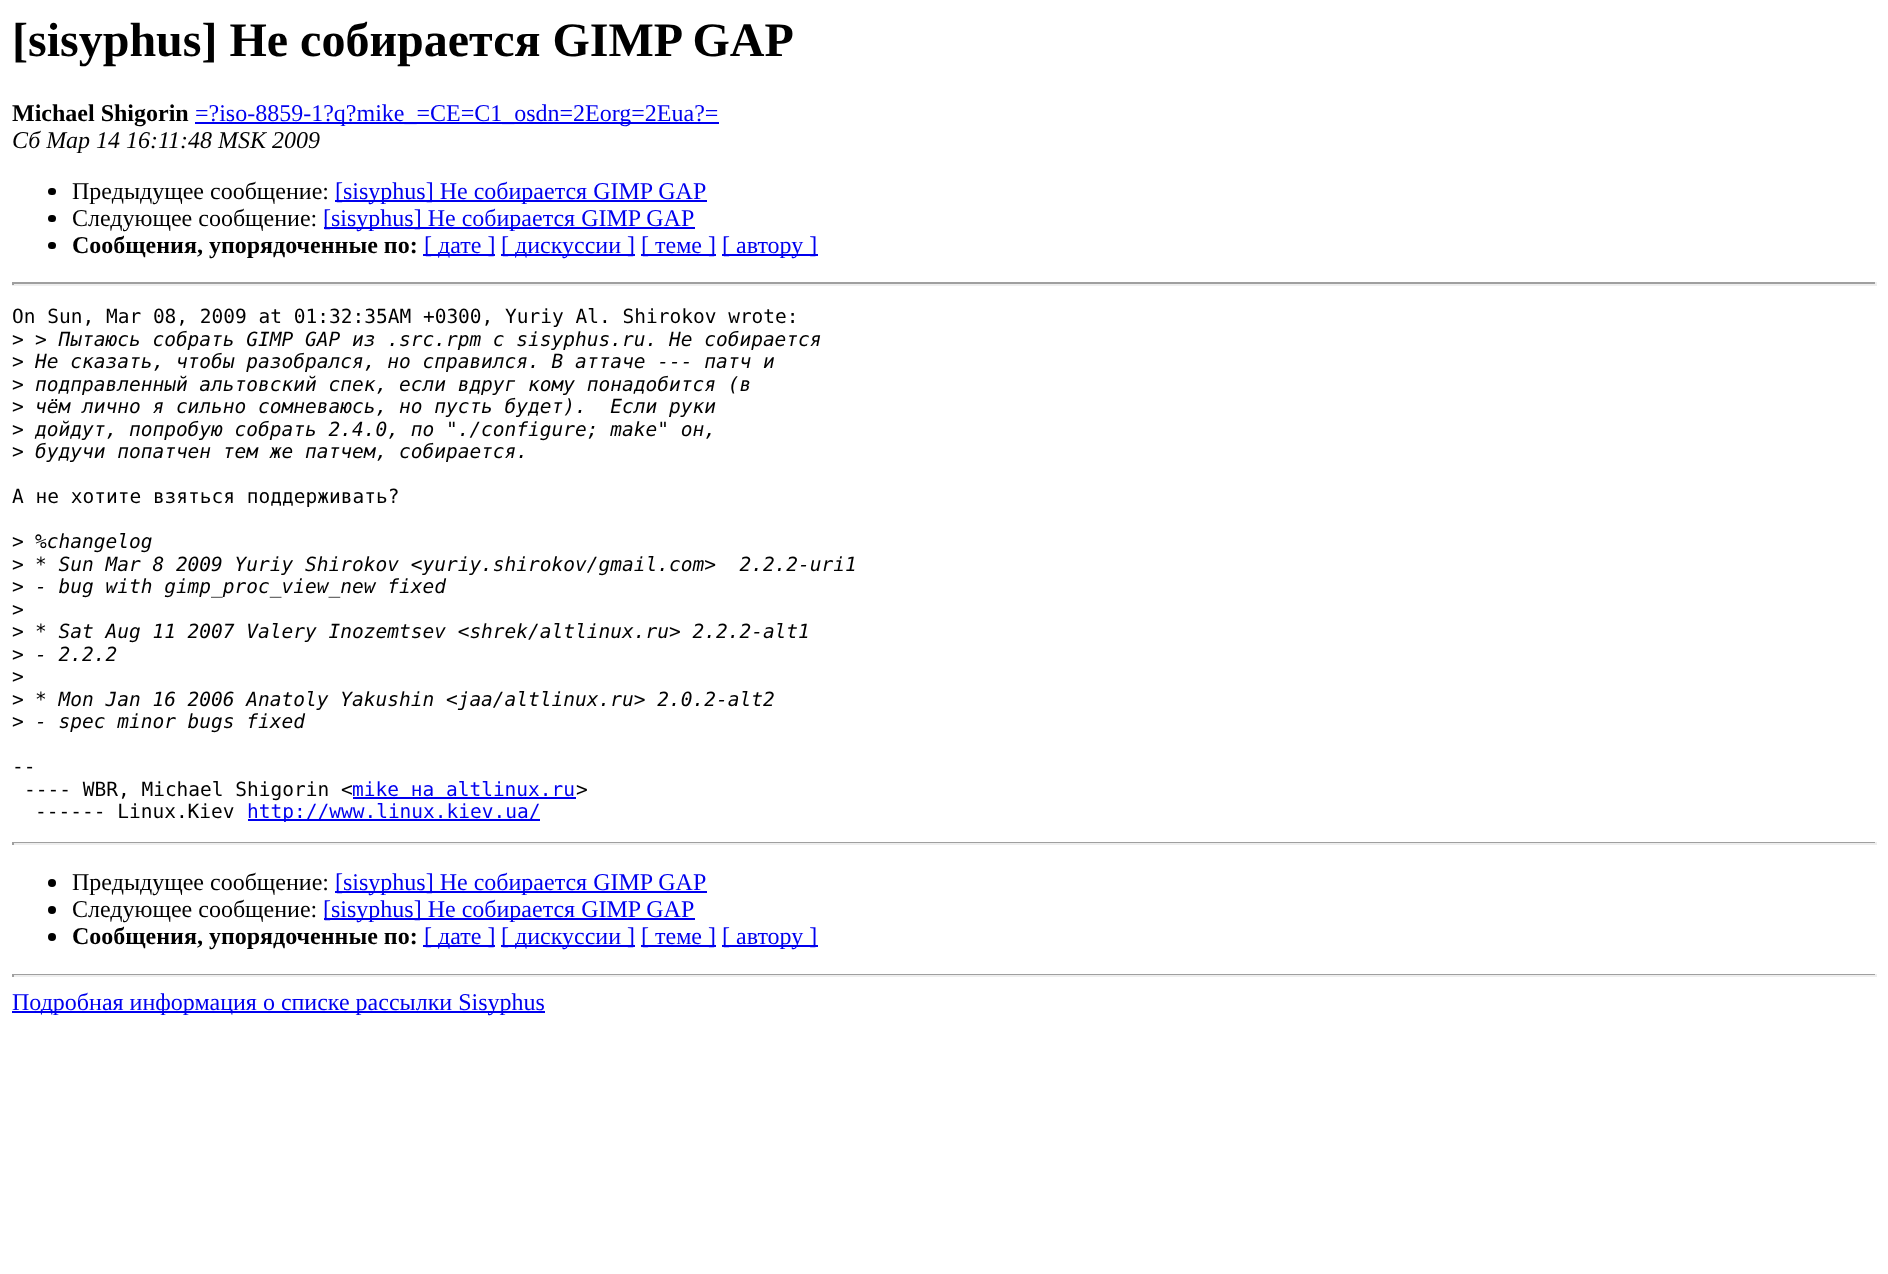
<svg xmlns="http://www.w3.org/2000/svg" width="1888" height="1274" viewBox="0 0 1888 1274">
  <rect width="100%" height="100%" fill="#ffffff"/>
  <text x="12" y="56" font-family="Liberation Serif" font-size="48" font-weight="bold" fill="#000000">[sisyphus] Не собирается GIMP GAP</text>
  <text x="12" y="121" font-family="Liberation Serif" font-size="24" font-weight="bold" fill="#000000">Michael Shigorin</text>
  <rect x="195" y="122" width="524" height="2" fill="#0000ee"/>
  <text x="195" y="121" font-family="Liberation Serif" font-size="24" fill="#0000ee">=?iso-8859-1?q?mike_=CE=C1_osdn=2Eorg=2Eua?=</text>
  <text x="12" y="148" font-family="Liberation Serif" font-size="24" font-style="italic" fill="#000000">Сб Мар 14 16:11:48 MSK 2009</text>
  <rect x="48" y="188" width="8" height="7" rx="3.5" fill="#000000"/>
  <text x="72" y="199" font-family="Liberation Serif" font-size="24" fill="#000000">Предыдущее сообщение:</text>
  <rect x="335" y="200" width="372" height="2" fill="#0000ee"/>
  <text x="335" y="199" font-family="Liberation Serif" font-size="24" fill="#0000ee">[sisyphus] Не собирается GIMP GAP</text>
  <rect x="48" y="215" width="8" height="7" rx="3.5" fill="#000000"/>
  <text x="72" y="226" font-family="Liberation Serif" font-size="24" fill="#000000">Следующее сообщение:</text>
  <rect x="324" y="227" width="371" height="2" fill="#0000ee"/>
  <text x="323" y="226" font-family="Liberation Serif" font-size="24" fill="#0000ee">[sisyphus] Не собирается GIMP GAP</text>
  <rect x="48" y="242" width="8" height="7" rx="3.5" fill="#000000"/>
  <text x="72" y="253" font-family="Liberation Serif" font-size="24" font-weight="bold" fill="#000000">Сообщения, упорядоченные по:</text>
  <rect x="423" y="254" width="72" height="2" fill="#0000ee"/>
  <text x="424" y="253" font-family="Liberation Serif" font-size="24" fill="#0000ee">[ дате ]</text>
  <rect x="501" y="254" width="134" height="2" fill="#0000ee"/>
  <text x="501" y="253" font-family="Liberation Serif" font-size="24" fill="#0000ee">[ дискуссии ]</text>
  <rect x="641" y="254" width="75" height="2" fill="#0000ee"/>
  <text x="641" y="253" font-family="Liberation Serif" font-size="24" fill="#0000ee">[ теме ]</text>
  <rect x="722" y="254" width="96" height="2" fill="#0000ee"/>
  <text x="722" y="253" font-family="Liberation Serif" font-size="24" fill="#0000ee">[ автору ]</text>
  <rect x="12" y="282" width="1865" height="2" fill="#9f9f9f"/>
  <rect x="1875" y="282" width="2" height="3" fill="#eeeeee"/>
  <rect x="12" y="284" width="1865" height="2" fill="#eeeeee"/>
  <rect x="12" y="282" width="2" height="3" fill="#9f9f9f"/>
  <text x="12" y="323" font-family="DejaVu Sans Mono" font-size="19.5" fill="#000000">On Sun, Mar 08, 2009 at 01:32:35AM +0300, Yuriy Al. Shirokov wrote:</text>
  <text x="12" y="346" font-family="DejaVu Sans Mono" font-size="19.5" fill="#000000">&gt;</text>
  <text x="35" y="346" font-family="DejaVu Sans Mono" font-size="19.5" font-style="italic" fill="#000000">&gt; Пытаюсь собрать GIMP GAP из .src.rpm с sisyphus.ru. Не собирается</text>
  <text x="12" y="368" font-family="DejaVu Sans Mono" font-size="19.5" fill="#000000">&gt;</text>
  <text x="35" y="368" font-family="DejaVu Sans Mono" font-size="19.5" font-style="italic" fill="#000000">Не сказать, чтобы разобрался, но справился. В аттаче --- патч и</text>
  <text x="12" y="391" font-family="DejaVu Sans Mono" font-size="19.5" fill="#000000">&gt;</text>
  <text x="35" y="391" font-family="DejaVu Sans Mono" font-size="19.5" font-style="italic" fill="#000000">подправленный альтовский спек, если вдруг кому понадобится (в</text>
  <text x="12" y="413" font-family="DejaVu Sans Mono" font-size="19.5" fill="#000000">&gt;</text>
  <text x="35" y="413" font-family="DejaVu Sans Mono" font-size="19.5" font-style="italic" fill="#000000" xml:space="preserve">чём лично я сильно сомневаюсь, но пусть будет).  Если руки</text>
  <text x="12" y="436" font-family="DejaVu Sans Mono" font-size="19.5" fill="#000000">&gt;</text>
  <text x="35" y="436" font-family="DejaVu Sans Mono" font-size="19.5" font-style="italic" fill="#000000">дойдут, попробую собрать 2.4.0, по "./configure; make" он,</text>
  <text x="12" y="458" font-family="DejaVu Sans Mono" font-size="19.5" fill="#000000">&gt;</text>
  <text x="35" y="458" font-family="DejaVu Sans Mono" font-size="19.5" font-style="italic" fill="#000000">будучи попатчен тем же патчем, собирается.</text>
  <text x="12" y="503" font-family="DejaVu Sans Mono" font-size="19.5" fill="#000000">А не хотите взяться поддерживать?</text>
  <text x="12" y="548" font-family="DejaVu Sans Mono" font-size="19.5" fill="#000000">&gt;</text>
  <text x="35" y="548" font-family="DejaVu Sans Mono" font-size="19.5" font-style="italic" fill="#000000">%changelog</text>
  <text x="12" y="571" font-family="DejaVu Sans Mono" font-size="19.5" fill="#000000">&gt;</text>
  <text x="35" y="571" font-family="DejaVu Sans Mono" font-size="19.5" font-style="italic" fill="#000000" xml:space="preserve">* Sun Mar 8 2009 Yuriy Shirokov &lt;yuriy.shirokov/gmail.com&gt;  2.2.2-uri1</text>
  <text x="12" y="593" font-family="DejaVu Sans Mono" font-size="19.5" fill="#000000">&gt;</text>
  <text x="35" y="593" font-family="DejaVu Sans Mono" font-size="19.5" font-style="italic" fill="#000000">- bug with gimp_proc_view_new fixed</text>
  <text x="12" y="616" font-family="DejaVu Sans Mono" font-size="19.5" fill="#000000">&gt;</text>
  <text x="12" y="638" font-family="DejaVu Sans Mono" font-size="19.5" fill="#000000">&gt;</text>
  <text x="35" y="638" font-family="DejaVu Sans Mono" font-size="19.5" font-style="italic" fill="#000000">* Sat Aug 11 2007 Valery Inozemtsev &lt;shrek/altlinux.ru&gt; 2.2.2-alt1</text>
  <text x="12" y="661" font-family="DejaVu Sans Mono" font-size="19.5" fill="#000000">&gt;</text>
  <text x="35" y="661" font-family="DejaVu Sans Mono" font-size="19.5" font-style="italic" fill="#000000">- 2.2.2</text>
  <text x="12" y="683" font-family="DejaVu Sans Mono" font-size="19.5" fill="#000000">&gt;</text>
  <text x="12" y="706" font-family="DejaVu Sans Mono" font-size="19.5" fill="#000000">&gt;</text>
  <text x="35" y="706" font-family="DejaVu Sans Mono" font-size="19.5" font-style="italic" fill="#000000">* Mon Jan 16 2006 Anatoly Yakushin &lt;jaa/altlinux.ru&gt; 2.0.2-alt2</text>
  <text x="12" y="728" font-family="DejaVu Sans Mono" font-size="19.5" fill="#000000">&gt;</text>
  <text x="35" y="728" font-family="DejaVu Sans Mono" font-size="19.5" font-style="italic" fill="#000000">- spec minor bugs fixed</text>
  <text x="12" y="773" font-family="DejaVu Sans Mono" font-size="19.5" fill="#000000">--</text>
  <text x="24" y="796" font-family="DejaVu Sans Mono" font-size="19.5" fill="#000000">---- WBR, Michael Shigorin &lt;</text>
  <text x="352" y="796" font-family="DejaVu Sans Mono" font-size="19.5" fill="#0000ee">mike на altlinux.ru</text>
  <rect x="353" y="797" width="223" height="2" fill="#0000ee"/>
  <text x="576" y="796" font-family="DejaVu Sans Mono" font-size="19.5" fill="#000000">&gt;</text>
  <text x="35" y="818" font-family="DejaVu Sans Mono" font-size="19.5" fill="#000000">------ Linux.Kiev</text>
  <rect x="248" y="819" width="292" height="2" fill="#0000ee"/>
  <text x="247" y="818" font-family="DejaVu Sans Mono" font-size="19.5" fill="#0000ee">http://www.linux.kiev.ua/</text>
  <rect x="12" y="842" width="1865" height="1" fill="#9f9f9f"/>
  <rect x="1875" y="842" width="2" height="3" fill="#eeeeee"/>
  <rect x="12" y="843" width="1865" height="2" fill="#eeeeee"/>
  <rect x="12" y="842" width="2" height="3" fill="#9f9f9f"/>
  <circle cx="52" cy="883" r="4" fill="#000000"/>
  <text x="72" y="890" font-family="Liberation Serif" font-size="24" fill="#000000">Предыдущее сообщение:</text>
  <rect x="335" y="891" width="372" height="2" fill="#0000ee"/>
  <text x="335" y="890" font-family="Liberation Serif" font-size="24" fill="#0000ee">[sisyphus] Не собирается GIMP GAP</text>
  <circle cx="52" cy="910" r="4" fill="#000000"/>
  <text x="72" y="917" font-family="Liberation Serif" font-size="24" fill="#000000">Следующее сообщение:</text>
  <rect x="324" y="918" width="371" height="2" fill="#0000ee"/>
  <text x="323" y="917" font-family="Liberation Serif" font-size="24" fill="#0000ee">[sisyphus] Не собирается GIMP GAP</text>
  <circle cx="52" cy="937" r="4" fill="#000000"/>
  <text x="72" y="944" font-family="Liberation Serif" font-size="24" font-weight="bold" fill="#000000">Сообщения, упорядоченные по:</text>
  <rect x="423" y="945" width="72" height="2" fill="#0000ee"/>
  <text x="424" y="944" font-family="Liberation Serif" font-size="24" fill="#0000ee">[ дате ]</text>
  <rect x="501" y="945" width="134" height="2" fill="#0000ee"/>
  <text x="501" y="944" font-family="Liberation Serif" font-size="24" fill="#0000ee">[ дискуссии ]</text>
  <rect x="641" y="945" width="75" height="2" fill="#0000ee"/>
  <text x="641" y="944" font-family="Liberation Serif" font-size="24" fill="#0000ee">[ теме ]</text>
  <rect x="722" y="945" width="96" height="2" fill="#0000ee"/>
  <text x="722" y="944" font-family="Liberation Serif" font-size="24" fill="#0000ee">[ автору ]</text>
  <rect x="12" y="974" width="1865" height="1" fill="#9f9f9f"/>
  <rect x="1875" y="974" width="2" height="3" fill="#eeeeee"/>
  <rect x="12" y="975" width="1865" height="2" fill="#eeeeee"/>
  <rect x="12" y="974" width="2" height="3" fill="#9f9f9f"/>
  <rect x="12" y="1011" width="533" height="2" fill="#0000ee"/>
  <text x="12" y="1010" font-family="Liberation Serif" font-size="24" fill="#0000ee">Подробная информация о списке рассылки Sisyphus</text>
</svg>
